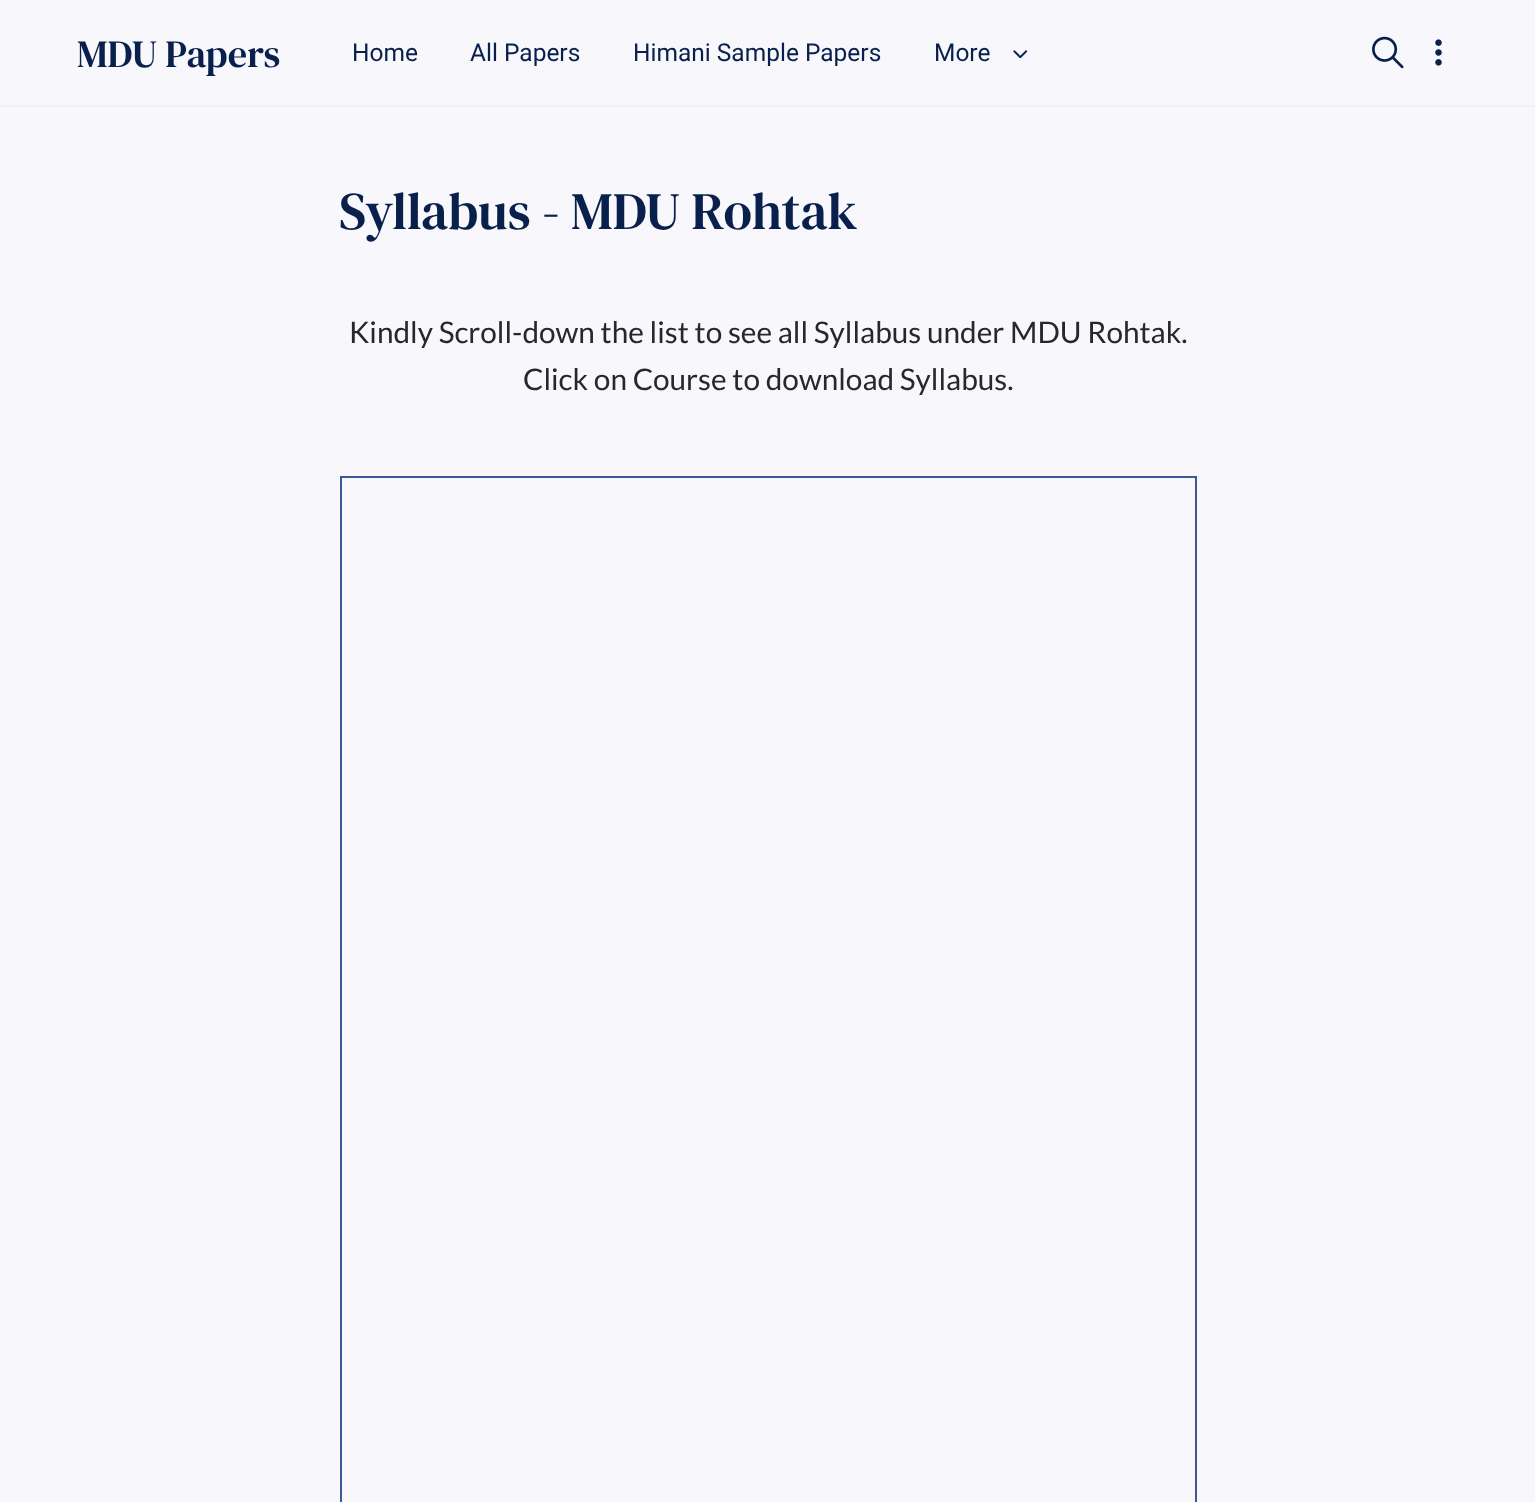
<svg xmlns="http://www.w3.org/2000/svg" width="1535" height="1502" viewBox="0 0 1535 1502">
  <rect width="100%" height="100%" fill="#f7f7fc"/>
  <text x="77" y="67" font-family="DM Serif Text" font-size="38.5" fill="#09204c">MDU Papers</text>
  <text x="352" y="61" font-family="Roboto" font-size="24.5" fill="#09204c">Home</text>
  <text x="470" y="61" font-family="Roboto" font-size="24.5" fill="#09204c">All Papers</text>
  <text x="633" y="61" font-family="Roboto" font-size="24.5" fill="#09204c">Himani Sample Papers</text>
  <text x="934" y="61" font-family="Roboto" font-size="24.5" fill="#09204c">More</text>
  <image x="1013" y="50" width="15" height="9" href="img1.png"/>
  <image x="1372" y="36" width="32" height="33" href="img2.png"/>
  <image x="1435" y="39" width="7" height="27" href="img3.png"/>
  <rect x="0" y="105" width="1535" height="2" fill="#f0f0f4"/>
  <text x="339" y="229" font-family="DM Serif Text" font-size="52.5" fill="#09204c">Syllabus - MDU Rohtak</text>
  <text x="349" y="343" font-family="Lato" font-size="29.75" fill="#282828">Kindly Scroll-down the list to see all Syllabus under MDU Rohtak.</text>
  <text x="523" y="390" font-family="Lato" font-size="29.75" fill="#282828">Click on Course to download Syllabus.</text>
  <rect x="341" y="477" width="855" height="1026" fill="none" stroke="#3b5998" stroke-width="2"/>
</svg>
